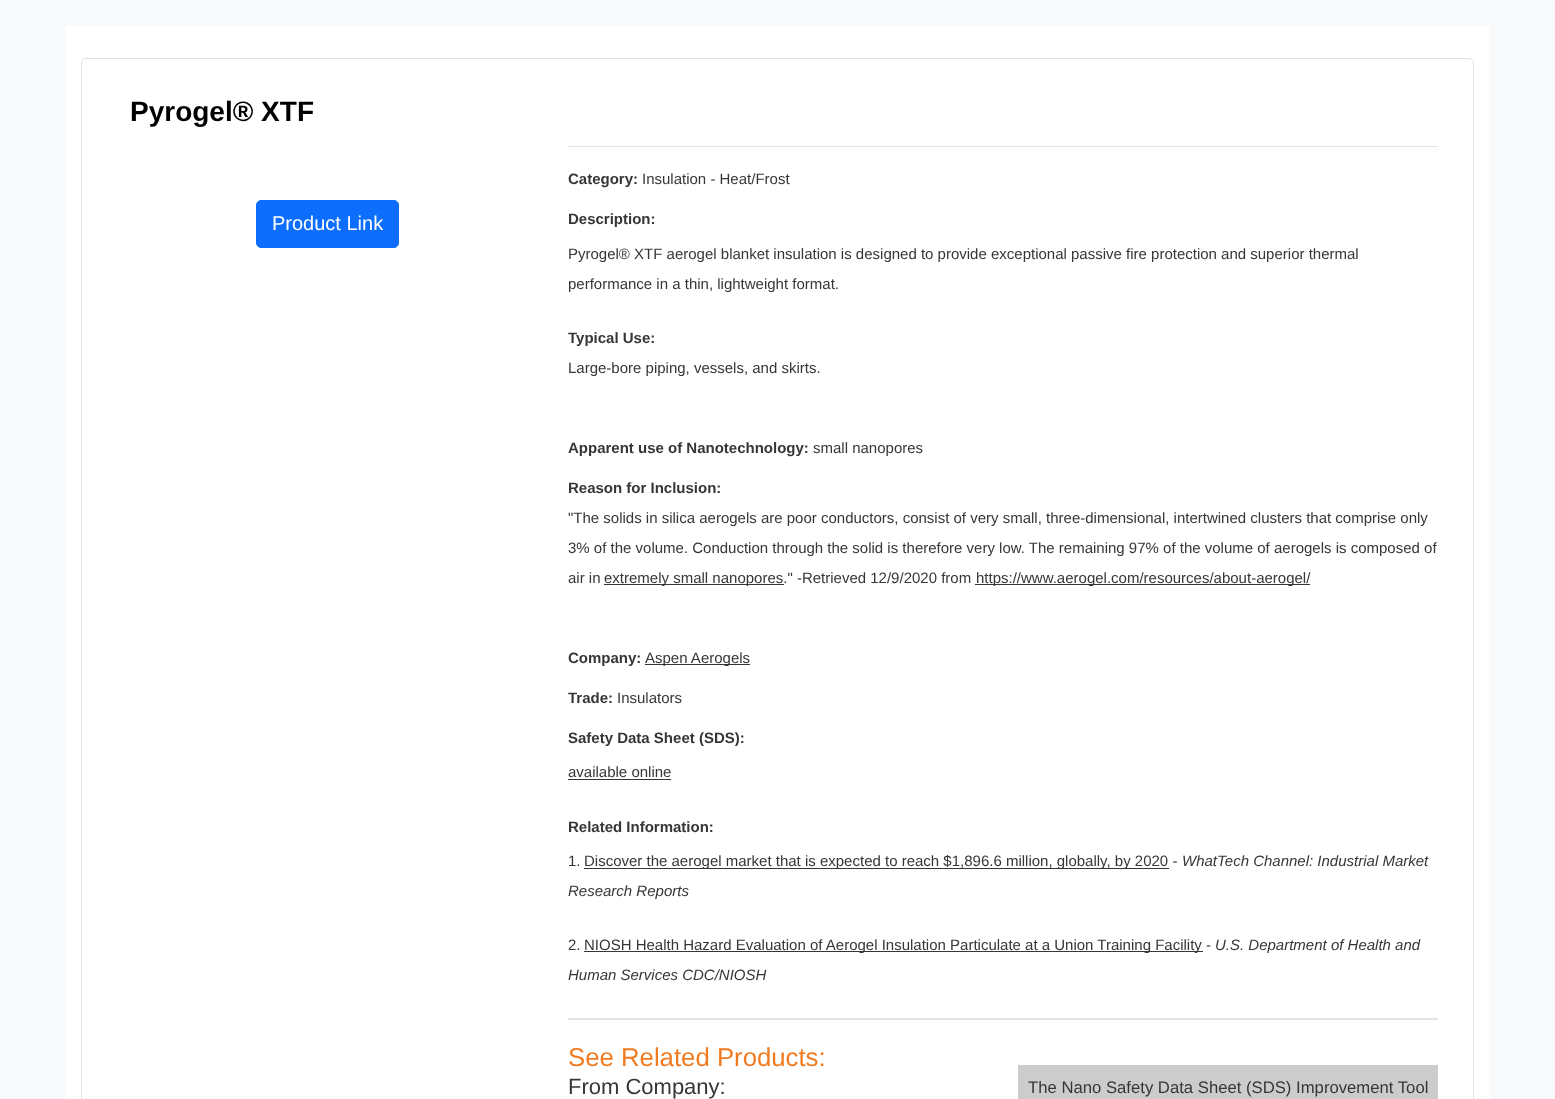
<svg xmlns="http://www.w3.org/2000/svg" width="1555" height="1099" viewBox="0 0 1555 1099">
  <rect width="100%" height="100%" fill="#f8f9fa"/>
  <rect x="65" y="26" width="1425" height="1073" fill="#ffffff"/>
  <rect x="81.5" y="58.5" width="1392" height="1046" rx="4.5" fill="none" stroke="#dfdfdf"/>
  <text x="130" y="121" font-family="Liberation Sans" font-size="28" font-weight="bold" fill="#000000">Pyrogel® XTF</text>
  <rect x="256.5" y="200.5" width="142" height="47" rx="4.5" fill="#0d6efd" stroke="#0d6efd"/>
  <text x="272" y="230" font-family="Liberation Sans" font-size="20" fill="#ffffff">Product Link</text>
  <rect x="568" y="146" width="870" height="1" fill="#e4e4e4"/>
  <rect x="568" y="1018" width="870" height="2" fill="#e4e4e4"/>
  <text x="568" y="184" font-family="Liberation Sans" font-size="15" font-weight="bold" fill="#363636">Category:</text>
  <text x="642" y="184" font-family="Liberation Sans" font-size="15" fill="#363636">Insulation - Heat/Frost</text>
  <text x="568" y="224" font-family="Liberation Sans" font-size="15" font-weight="bold" fill="#363636">Description:</text>
  <text x="568" y="259" font-family="Liberation Sans" font-size="15" fill="#363636">Pyrogel® XTF aerogel blanket insulation is designed to provide exceptional passive fire protection and superior thermal</text>
  <text x="568" y="289" font-family="Liberation Sans" font-size="15" fill="#363636">performance in a thin, lightweight format.</text>
  <text x="568" y="343" font-family="Liberation Sans" font-size="15" font-weight="bold" fill="#363636">Typical Use:</text>
  <text x="568" y="373" font-family="Liberation Sans" font-size="15" fill="#363636">Large-bore piping, vessels, and skirts.</text>
  <text x="568" y="453" font-family="Liberation Sans" font-size="15" font-weight="bold" fill="#363636">Apparent use of Nanotechnology:</text>
  <text x="813" y="453" font-family="Liberation Sans" font-size="15" fill="#363636">small nanopores</text>
  <text x="568" y="493" font-family="Liberation Sans" font-size="15" font-weight="bold" fill="#363636">Reason for Inclusion:</text>
  <text x="568" y="523" font-family="Liberation Sans" font-size="15" fill="#363636">"The solids in silica aerogels are poor conductors, consist of very small, three-dimensional, intertwined clusters that comprise only</text>
  <text x="568" y="553" font-family="Liberation Sans" font-size="15" fill="#363636">3% of the volume. Conduction through the solid is therefore very low. The remaining 97% of the volume of aerogels is composed of</text>
  <text x="568" y="583" font-family="Liberation Sans" font-size="15" fill="#363636">air in</text>
  <rect x="604" y="584" width="180" height="1" fill="#363636"/>
  <text x="604" y="583" font-family="Liberation Sans" font-size="15" fill="#363636">extremely small nanopores." -Retrieved 12/9/2020 from</text>
  <rect x="975" y="584" width="335" height="1" fill="#363636"/>
  <text x="976" y="583" font-family="Liberation Sans" font-size="15" fill="#363636">https://www.aerogel.com/resources/about-aerogel/</text>
  <text x="568" y="663" font-family="Liberation Sans" font-size="15" font-weight="bold" fill="#363636">Company:</text>
  <rect x="645" y="664" width="105" height="1" fill="#363636"/>
  <text x="645" y="663" font-family="Liberation Sans" font-size="15" fill="#363636">Aspen Aerogels</text>
  <text x="568" y="703" font-family="Liberation Sans" font-size="15" font-weight="bold" fill="#363636">Trade:</text>
  <text x="617" y="703" font-family="Liberation Sans" font-size="15" fill="#363636">Insulators</text>
  <text x="568" y="743" font-family="Liberation Sans" font-size="15" font-weight="bold" fill="#363636">Safety Data Sheet (SDS):</text>
  <text x="568" y="777" font-family="Liberation Sans" font-size="15" fill="#363636">available online</text>
  <rect x="568" y="779" width="103" height="1" fill="#363636"/>
  <text x="568" y="832" font-family="Liberation Sans" font-size="15" font-weight="bold" fill="#363636">Related Information:</text>
  <text x="568" y="866" font-family="Liberation Sans" font-size="15" fill="#363636">1.</text>
  <rect x="584" y="868" width="585" height="1" fill="#363636"/>
  <text x="584" y="866" font-family="Liberation Sans" font-size="15" fill="#363636">Discover the aerogel market that is expected to reach $1,896.6 million, globally, by 2020 -</text>
  <text x="1182" y="866" font-family="Liberation Sans" font-size="15" font-style="italic" fill="#363636">WhatTech Channel: Industrial Market</text>
  <text x="568" y="896" font-family="Liberation Sans" font-size="15" font-style="italic" fill="#363636">Research Reports</text>
  <text x="568" y="950" font-family="Liberation Sans" font-size="15" fill="#363636">2.</text>
  <rect x="584" y="951" width="619" height="1" fill="#363636"/>
  <text x="584" y="950" font-family="Liberation Sans" font-size="15" fill="#363636">NIOSH Health Hazard Evaluation of Aerogel Insulation Particulate at a Union Training Facility -</text>
  <text x="1215" y="950" font-family="Liberation Sans" font-size="15" font-style="italic" fill="#363636">U.S. Department of Health and</text>
  <text x="568" y="980" font-family="Liberation Sans" font-size="15" font-style="italic" fill="#363636">Human Services CDC/NIOSH</text>
  <text x="568" y="1066" font-family="Liberation Sans" font-size="25.75" fill="#f07a20">See Related Products:</text>
  <text x="568" y="1094" font-family="Liberation Sans" font-size="22" fill="#363636">From Company:</text>
  <rect x="1018" y="1065" width="420" height="34" fill="#cccccc"/>
  <text x="1028" y="1093" font-family="Liberation Sans" font-size="16.7" fill="#363636">The Nano Safety Data Sheet (SDS) Improvement Tool</text>
</svg>
